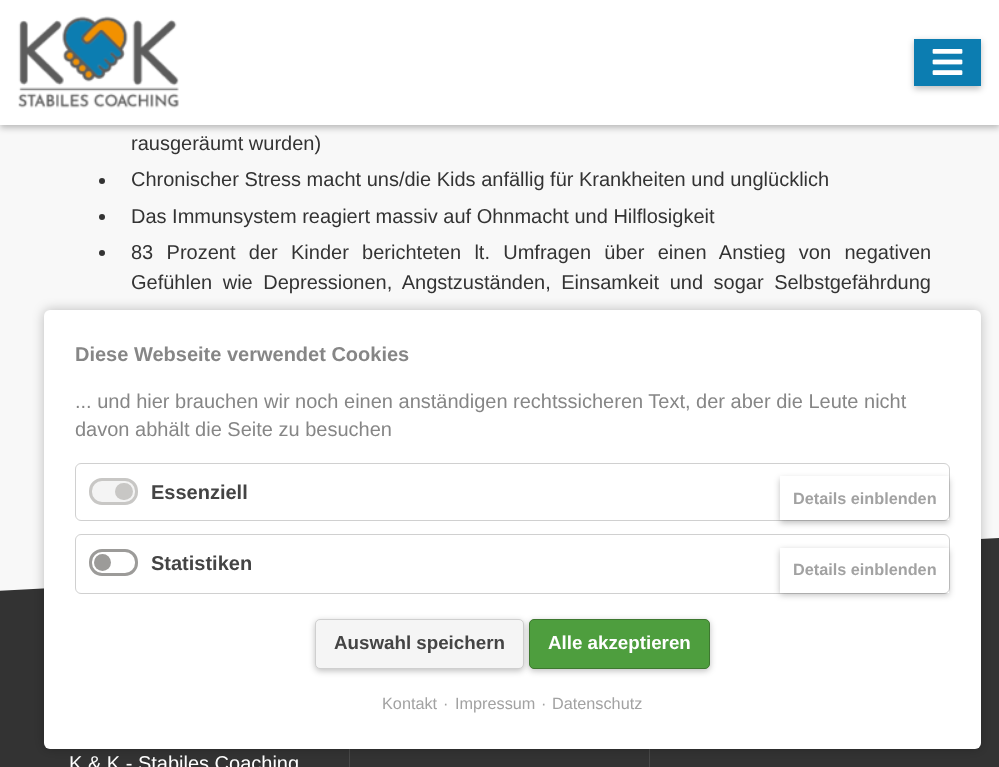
<svg xmlns="http://www.w3.org/2000/svg" width="999" height="767" viewBox="0 0 999 767">
  <defs>
    <filter id="blur1" x="-50%" y="-200%" width="200%" height="500%"><feGaussianBlur stdDeviation="3"/></filter>
    <clipPath id="clip1"><rect x="0" y="479" width="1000" height="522"/></clipPath>
    <filter id="blur2" x="-50%" y="-200%" width="200%" height="500%"><feGaussianBlur stdDeviation="6"/></filter>
    <clipPath id="clip2"><path d="M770 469H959V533H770ZM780 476H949V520H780Z" clip-rule="evenodd"/></clipPath>
    <clipPath id="clip3"><path d="M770 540H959V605H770ZM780 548H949V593H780Z" clip-rule="evenodd"/></clipPath>
  </defs>
  <rect width="100%" height="100%" fill="#f8f8f8"/>
  <rect x="0" y="3" width="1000" height="125" fill="#000000" fill-opacity="0.25" filter="url(#blur1)"/>
  <rect x="0" y="0" width="999" height="125" fill="#ffffff"/>
  <image x="18" y="16" width="161" height="92" href="img1.png"/>
  <rect x="914" y="41" width="67" height="48" fill="#000000" fill-opacity="0.25" filter="url(#blur1)"/>
  <rect x="914" y="39" width="67" height="47" fill="#0c7db1"/>
  <image x="932" y="49" width="31" height="26" href="img2.png"/>
  <text x="131" y="150" font-family="Liberation Sans" font-size="20" fill="#333333">rausgeräumt wurden)</text>
  <circle cx="102" cy="181" r="3" fill="#333333"/>
  <text x="131" y="186" font-family="Liberation Sans" font-size="20" fill="#333333">Chronischer Stress macht uns/die Kids anfällig für Krankheiten und unglücklich</text>
  <circle cx="102" cy="217" r="3" fill="#333333"/>
  <text x="131" y="223" font-family="Liberation Sans" font-size="20" fill="#333333">Das Immunsystem reagiert massiv auf Ohnmacht und Hilflosigkeit</text>
  <circle cx="102" cy="253" r="3" fill="#333333"/>
  <text x="131" y="259" word-spacing="7.75" font-family="Liberation Sans" font-size="20" fill="#333333">83 Prozent der Kinder berichteten lt. Umfragen über einen Anstieg von negativen</text>
  <text x="131" y="289" word-spacing="5" font-family="Liberation Sans" font-size="20" fill="#333333">Gefühlen wie Depressionen, Angstzuständen, Einsamkeit und sogar Selbstgefährdung</text>
  <rect x="0" y="538" width="999" height="229" fill="#333333"/>
  <g clip-path="url(#clip1)">
    <path d="M-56 306L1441 227L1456 514L-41 593Z" fill="#f8f8f8"/>
  </g>
  <rect x="349" y="749" width="1" height="18" fill="#484848"/>
  <text x="69" y="770" font-family="Liberation Sans" font-size="20" fill="#ffffff">K &amp; K - Stabiles Coaching</text>
  <rect x="649" y="749" width="1" height="18" fill="#484848"/>
  <rect x="44" y="310" width="937" height="439" rx="6" fill="#000000" fill-opacity="0.25" filter="url(#blur2)"/>
  <rect x="44" y="310" width="937" height="439" rx="6" fill="#ffffff"/>
  <text x="75" y="361" font-family="Liberation Sans" font-size="20" font-weight="bold" fill="#868686">Diese Webseite verwendet Cookies</text>
  <text x="75" y="408" font-family="Liberation Sans" font-size="20" fill="#868686">... und hier brauchen wir noch einen anständigen rechtssicheren Text, der aber die Leute nicht</text>
  <text x="75" y="436" font-family="Liberation Sans" font-size="20" fill="#868686">davon abhält die Seite zu besuchen</text>
  <rect x="75.5" y="463.5" width="874" height="57" rx="5.5" fill="none" stroke="#d0d0d0"/>
  <rect x="90.5" y="479.5" width="46" height="24" rx="11.5" fill="#f4f4f4" stroke="#c8c7c5" stroke-width="3"/>
  <rect x="115" y="483" width="18" height="17" rx="8.5" fill="#c8c7c5"/>
  <text x="151" y="499" font-family="Liberation Sans" font-size="20" font-weight="bold" fill="#444444">Essenziell</text>
  <g clip-path="url(#clip2)">
    <rect x="780" y="479" width="169" height="44" fill="#000000" fill-opacity="0.25" filter="url(#blur1)"/>
  </g>
  <text x="793" y="504" font-family="Liberation Sans" font-size="16.25" font-weight="bold" fill="#a2a2a2">Details einblenden</text>
  <rect x="75.5" y="534.5" width="874" height="59" rx="5.5" fill="none" stroke="#d0d0d0"/>
  <rect x="90.5" y="550.5" width="46" height="24" rx="11.5" fill="none" stroke="#9c9b99" stroke-width="3"/>
  <circle cx="102.5" cy="562.5" r="8.5" fill="#9c9b99"/>
  <text x="151" y="570" font-family="Liberation Sans" font-size="20" font-weight="bold" fill="#444444">Statistiken</text>
  <g clip-path="url(#clip3)">
    <rect x="780" y="550" width="169" height="45" fill="#000000" fill-opacity="0.25" filter="url(#blur1)"/>
  </g>
  <text x="793" y="575" font-family="Liberation Sans" font-size="16.25" font-weight="bold" fill="#a2a2a2">Details einblenden</text>
  <rect x="315" y="621" width="209" height="50" rx="5" fill="#000000" fill-opacity="0.25" filter="url(#blur1)"/>
  <rect x="315.5" y="619.5" width="208" height="49" rx="4.5" fill="#f5f5f5" stroke="#cfcfcf"/>
  <text x="334" y="649" font-family="Liberation Sans" font-size="18.75" font-weight="bold" fill="#444444">Auswahl speichern</text>
  <rect x="529" y="621" width="181" height="50" rx="5" fill="#000000" fill-opacity="0.25" filter="url(#blur1)"/>
  <rect x="529.5" y="619.5" width="180" height="49" rx="4.5" fill="#4e9e3e" stroke="#3e7830"/>
  <text x="548" y="649" font-family="Liberation Sans" font-size="18.75" font-weight="bold" fill="#ffffff">Alle akzeptieren</text>
  <text x="382" y="709" font-family="Liberation Sans" font-size="16.25" fill="#a2a2a2">Kontakt</text>
  <text x="443" y="709" font-family="Liberation Sans" font-size="16.25" fill="#a2a2a2">·</text>
  <text x="455" y="709" font-family="Liberation Sans" font-size="16.25" fill="#a2a2a2">Impressum</text>
  <text x="541" y="709" font-family="Liberation Sans" font-size="16.25" fill="#a2a2a2">·</text>
  <text x="552" y="709" font-family="Liberation Sans" font-size="16.25" fill="#a2a2a2">Datenschutz</text>
</svg>
